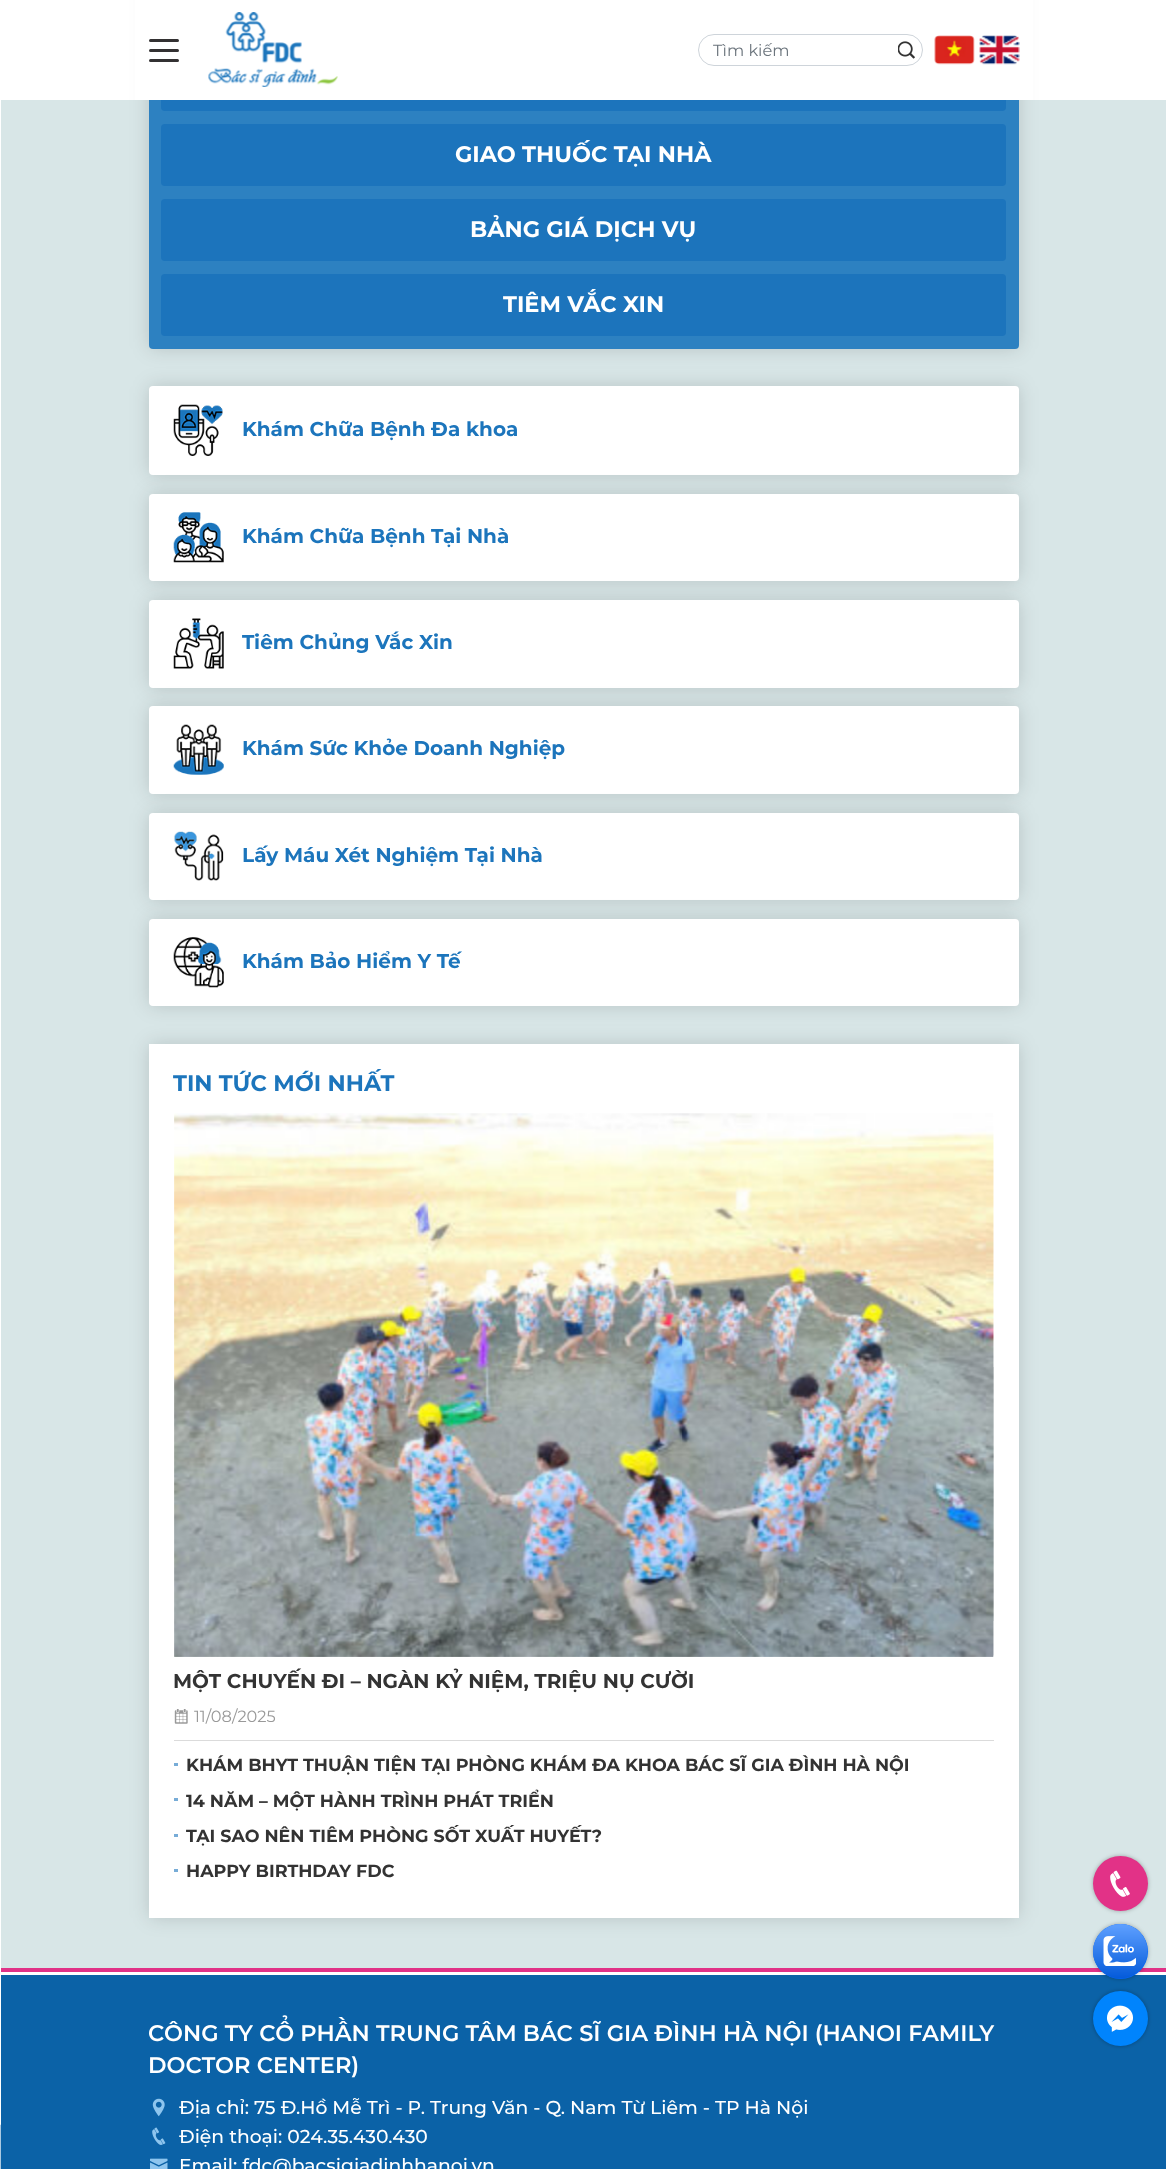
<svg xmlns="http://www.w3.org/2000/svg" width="1166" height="2169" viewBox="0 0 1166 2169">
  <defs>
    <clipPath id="clip1"><path d="M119 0H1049V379H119ZM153-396H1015C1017-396 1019-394 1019-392V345C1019 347 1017 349 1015 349H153C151 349 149 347 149 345V-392C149-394 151-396 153-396Z" clip-rule="evenodd"/></clipPath>
    <filter id="blur1" x="-50%" y="-200%" width="200%" height="500%"><feGaussianBlur stdDeviation="9.5"/></filter>
    <filter id="blur2" x="-50%" y="-200%" width="200%" height="500%"><feGaussianBlur stdDeviation="2"/></filter>
  </defs>
  <rect width="100%" height="100%" fill="#ffffff"/>
  <rect x="1" y="100" width="1165" height="1868" fill="#d8e6e7"/>
  <g clip-path="url(#clip1)">
    <rect x="149" y="-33" width="870" height="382" rx="4" fill="#000000" fill-opacity="0.15" filter="url(#blur1)"/>
  </g>
  <rect x="149" y="-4" width="870" height="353" rx="4" fill="#1b75bc" fill-opacity="0.9"/>
  <rect x="161" y="49" width="845" height="62" rx="4" fill="#1c74bc"/>
  <rect x="135" y="0" width="898" height="100" fill="#ffffff"/>
  <rect x="149" y="39" width="30" height="3" rx="1.5" fill="#333132"/>
  <rect x="149" y="49" width="30" height="3" rx="1.5" fill="#333132"/>
  <rect x="149" y="59" width="30" height="3" rx="1.5" fill="#333132"/>
  <image x="208" y="12" width="130" height="75" href="img1.png"/>
  <rect x="698.5" y="34.5" width="224" height="31" rx="15.5" fill="none" stroke="#ced4da"/>
  <text x="713" y="56" font-family="Montserrat" font-size="16.25" fill="#6c757d">Tìm kiếm</text>
  <image x="898" y="41" width="17" height="18" href="img2.png"/>
  <image x="934" y="35" width="41" height="30" href="img3.png"/>
  <image x="979" y="35" width="41" height="30" href="img4.png"/>
  <rect x="161" y="124" width="845" height="62" rx="4" fill="#1c74bc"/>
  <text x="455" y="162" font-family="Montserrat" font-size="22.5" font-weight="bold" fill="#ffffff">GIAO THUỐC TẠI NHÀ</text>
  <rect x="161" y="199" width="845" height="62" rx="4" fill="#1c74bc"/>
  <text x="470" y="237" font-family="Montserrat" font-size="22.5" font-weight="bold" fill="#ffffff">BẢNG GIÁ DỊCH VỤ</text>
  <rect x="161" y="274" width="845" height="62" rx="4" fill="#1c74bc"/>
  <text x="503" y="312" font-family="Montserrat" font-size="22.5" font-weight="bold" fill="#ffffff">TIÊM VẮC XIN</text>
  <rect x="149" y="386" width="870" height="89" rx="4" fill="#000000" fill-opacity="0.15" filter="url(#blur1)"/>
  <rect x="149" y="386" width="870" height="89" rx="4" fill="#ffffff"/>
  <image x="173" y="404" width="50" height="52" href="img5.png"/>
  <text x="242" y="436" font-family="Montserrat" font-size="20" font-weight="bold" fill="#1c75bc">Khám Chữa Bệnh Đa khoa</text>
  <rect x="149" y="494" width="870" height="87" rx="4" fill="#000000" fill-opacity="0.15" filter="url(#blur1)"/>
  <rect x="149" y="494" width="870" height="87" rx="4" fill="#ffffff"/>
  <image x="173" y="512" width="51" height="51" href="img6.png"/>
  <text x="242" y="543" font-family="Montserrat" font-size="20" font-weight="bold" fill="#1c75bc">Khám Chữa Bệnh Tại Nhà</text>
  <rect x="149" y="600" width="870" height="88" rx="4" fill="#000000" fill-opacity="0.15" filter="url(#blur1)"/>
  <rect x="149" y="600" width="870" height="88" rx="4" fill="#ffffff"/>
  <image x="173" y="618" width="51" height="51" href="img7.png"/>
  <text x="242" y="649" font-family="Montserrat" font-size="20" font-weight="bold" fill="#1c75bc">Tiêm Chủng Vắc Xin</text>
  <rect x="149" y="706" width="870" height="88" rx="4" fill="#000000" fill-opacity="0.15" filter="url(#blur1)"/>
  <rect x="149" y="706" width="870" height="88" rx="4" fill="#ffffff"/>
  <image x="173" y="724" width="51" height="51" href="img8.png"/>
  <text x="242" y="755" font-family="Montserrat" font-size="20" font-weight="bold" fill="#1c75bc">Khám Sức Khỏe Doanh Nghiệp</text>
  <rect x="149" y="813" width="870" height="87" rx="4" fill="#000000" fill-opacity="0.15" filter="url(#blur1)"/>
  <rect x="149" y="813" width="870" height="87" rx="4" fill="#ffffff"/>
  <image x="173" y="831" width="51" height="50" href="img9.png"/>
  <text x="242" y="862" font-family="Montserrat" font-size="20" font-weight="bold" fill="#1c75bc">Lấy Máu Xét Nghiệm Tại Nhà</text>
  <rect x="149" y="919" width="870" height="87" rx="4" fill="#000000" fill-opacity="0.15" filter="url(#blur1)"/>
  <rect x="149" y="919" width="870" height="87" rx="4" fill="#ffffff"/>
  <image x="173" y="937" width="51" height="51" href="img10.png"/>
  <text x="242" y="968" font-family="Montserrat" font-size="20" font-weight="bold" fill="#1c75bc">Khám Bảo Hiểm Y Tế</text>
  <rect x="149" y="1044" width="870" height="874" rx="4" fill="#000000" fill-opacity="0.15" filter="url(#blur1)"/>
  <rect x="149" y="1044" width="870" height="874" fill="#ffffff"/>
  <text x="173" y="1091" font-family="Montserrat" font-size="22.5" font-weight="bold" fill="#1c75bc">TIN TỨC MỚI NHẤT</text>
  <rect x="174" y="1740" width="820" height="1" fill="#dbdbdb"/>
  <image x="174" y="1113" width="820" height="544" href="img11.png"/>
  <text x="173" y="1688" font-family="Montserrat" font-size="20" font-weight="bold" fill="#333333">MỘT CHUYẾN ĐI – NGÀN KỶ NIỆM, TRIỆU NỤ CƯỜI</text>
  <image x="174" y="1709" width="14" height="15" href="img12.png"/>
  <text x="194" y="1722" font-family="Montserrat" font-size="16.25" fill="#999999">11/08/2025</text>
  <rect x="174" y="1763" width="4" height="3" fill="#77acd7"/>
  <text x="186" y="1771" font-family="Montserrat" font-size="17.5" font-weight="bold" fill="#333333">KHÁM BHYT THUẬN TIỆN TẠI PHÒNG KHÁM ĐA KHOA BÁC SĨ GIA ĐÌNH HÀ NỘI</text>
  <rect x="174" y="1798" width="4" height="3" fill="#77acd7"/>
  <text x="186" y="1807" font-family="Montserrat" font-size="17.5" font-weight="bold" fill="#333333">14 NĂM – MỘT HÀNH TRÌNH PHÁT TRIỂN</text>
  <rect x="174" y="1834" width="4" height="3" fill="#77acd7"/>
  <text x="186" y="1842" font-family="Montserrat" font-size="17.5" font-weight="bold" fill="#333333">TẠI SAO NÊN TIÊM PHÒNG SỐT XUẤT HUYẾT?</text>
  <rect x="174" y="1869" width="4" height="3" fill="#77acd7"/>
  <text x="186" y="1877" font-family="Montserrat" font-size="17.5" font-weight="bold" fill="#333333">HAPPY BIRTHDAY FDC</text>
  <rect x="1093" y="1856" width="55" height="55" rx="27.5" fill="#000000" fill-opacity="0.3" filter="url(#blur2)"/>
  <circle cx="1120.5" cy="1883.5" r="27.5" fill="#e23287"/>
  <image x="1110" y="1870" width="20" height="27" href="img13.png"/>
  <rect x="1" y="1968" width="1165" height="4" fill="#e03287"/>
  <rect x="1" y="1975" width="1165" height="194" fill="#0b62a7"/>
  <rect x="1093" y="1924" width="55" height="55" rx="27.5" fill="#000000" fill-opacity="0.3" filter="url(#blur2)"/>
  <circle cx="1120.5" cy="1951.5" r="27.5" fill="#0068ff"/>
  <image x="1093" y="1924" width="55" height="55" href="img14.png"/>
  <rect x="1093" y="1991" width="55" height="55" rx="27.5" fill="#000000" fill-opacity="0.3" filter="url(#blur2)"/>
  <circle cx="1120.5" cy="2018.5" r="27.5" fill="#0084fd"/>
  <image x="1107" y="2005" width="26" height="27" href="img15.png"/>
  <image x="0" y="2124" width="1" height="45" href="img16.png"/>
  <text x="148" y="2041" font-family="Montserrat" font-size="22.5" font-weight="600" fill="#ffffff">CÔNG TY CỔ PHẦN TRUNG TÂM BÁC SĨ GIA ĐÌNH HÀ NỘI (HANOI FAMILY</text>
  <text x="148" y="2073" font-family="Montserrat" font-size="22.5" font-weight="600" fill="#ffffff">DOCTOR CENTER)</text>
  <image x="152" y="2098" width="13" height="19" href="img17.png"/>
  <text x="179" y="2114" font-family="Montserrat" font-size="18.75" font-weight="500" fill="#ffffff">Địa chỉ: 75 Đ.Hồ Mễ Trì - P. Trung Văn - Q. Nam Từ Liêm - TP Hà Nội</text>
  <image x="152" y="2127" width="14" height="18" href="img18.png"/>
  <text x="179" y="2143" font-family="Montserrat" font-size="18.75" font-weight="500" fill="#ffffff">Điện thoại: 024.35.430.430</text>
  <image x="150" y="2158" width="18" height="11" href="img19.png"/>
  <text x="179" y="2172" font-family="Montserrat" font-size="18.75" font-weight="500" fill="#ffffff">Email: fdc@bacsigiadinhhanoi.vn</text>
</svg>
